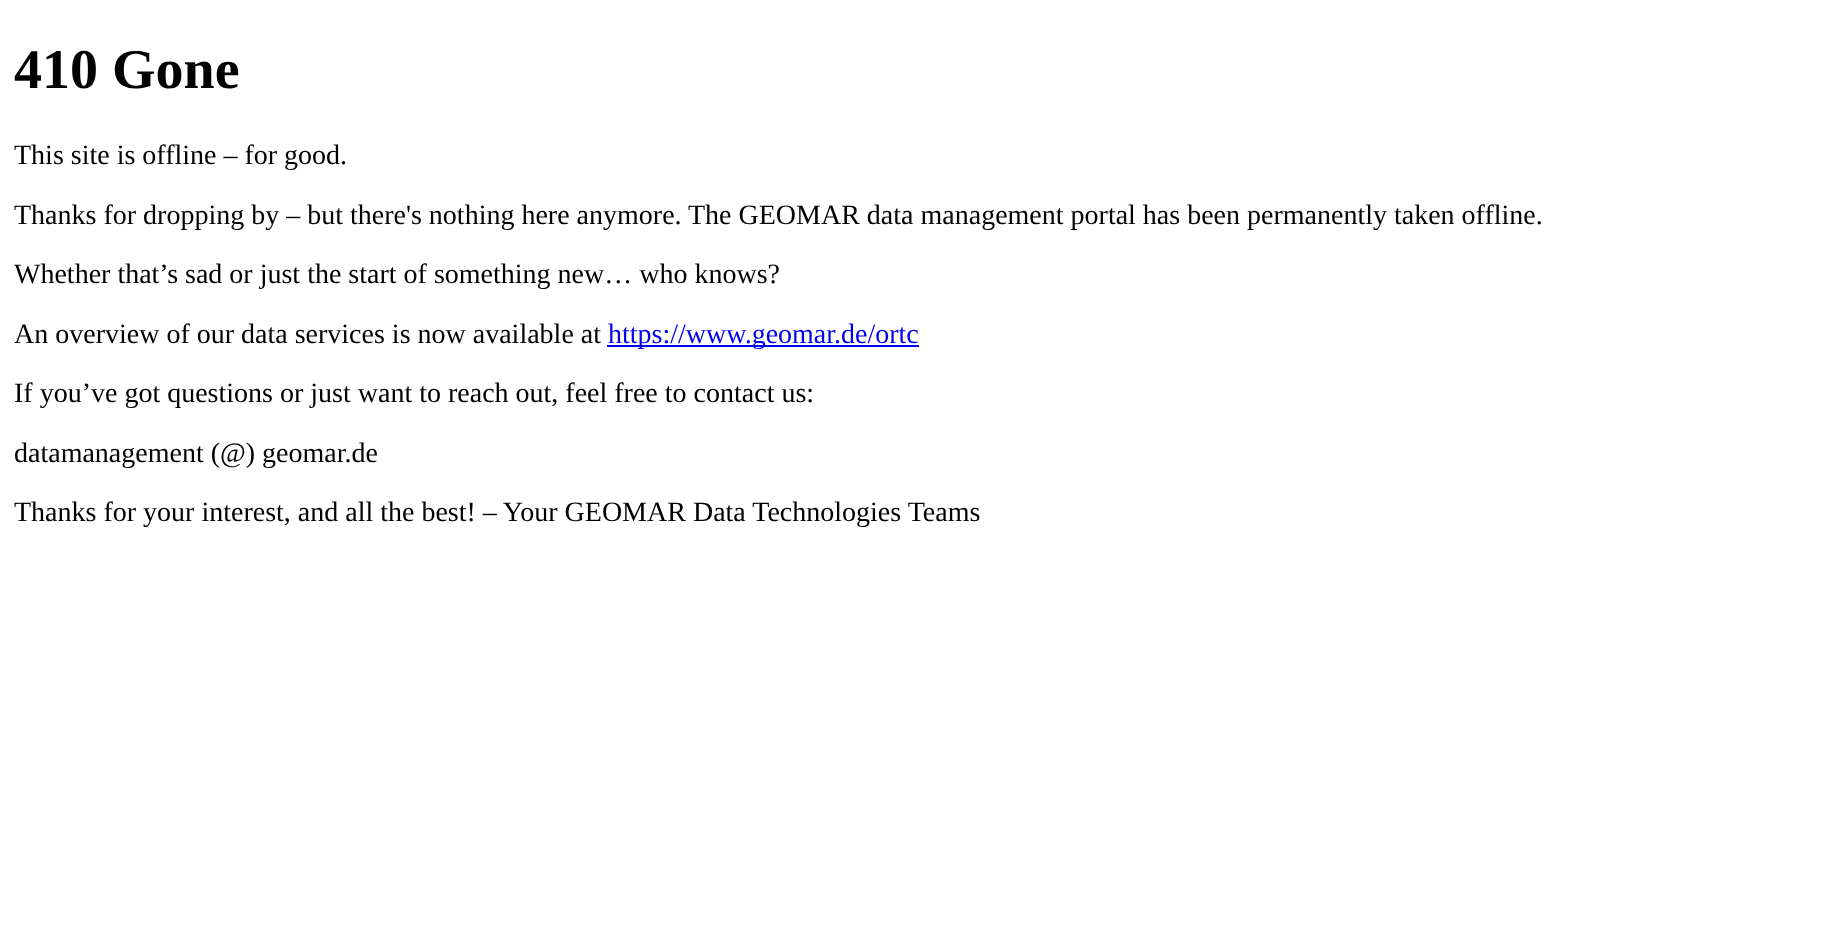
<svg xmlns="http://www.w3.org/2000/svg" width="1846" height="939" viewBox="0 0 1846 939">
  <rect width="100%" height="100%" fill="#ffffff"/>
  <text x="14" y="88" font-family="Liberation Serif" font-size="56" font-weight="bold" fill="#000000">410 Gone</text>
  <text x="14" y="164" font-family="Liberation Serif" font-size="28" fill="#000000">This site is offline – for good.</text>
  <text x="14" y="224" font-family="Liberation Serif" font-size="28" fill="#000000">Thanks for dropping by – but there's nothing here anymore.</text>
  <text x="688" y="224" font-family="Liberation Serif" font-size="28" fill="#000000">The GEOMAR data management portal has been permanently taken offline.</text>
  <text x="14" y="283" font-family="Liberation Serif" font-size="28" fill="#000000">Whether that’s sad or just the start of something new… who knows?</text>
  <text x="14" y="343" font-family="Liberation Serif" font-size="28" fill="#000000">An overview of our data services is now available at</text>
  <rect x="607" y="345" width="312" height="2" fill="#0000ee"/>
  <text x="608" y="343" font-family="Liberation Serif" font-size="28" fill="#0000ee">https://www.geomar.de/ortc</text>
  <text x="14" y="402" font-family="Liberation Serif" font-size="28" fill="#000000">If you’ve got questions or just want to reach out, feel free to contact us:</text>
  <text x="14" y="462" font-family="Liberation Serif" font-size="28" fill="#000000">datamanagement (@) geomar.de</text>
  <text x="14" y="521" font-family="Liberation Serif" font-size="28" fill="#000000">Thanks for your interest, and all the best! – Your GEOMAR Data Technologies Teams</text>
</svg>
